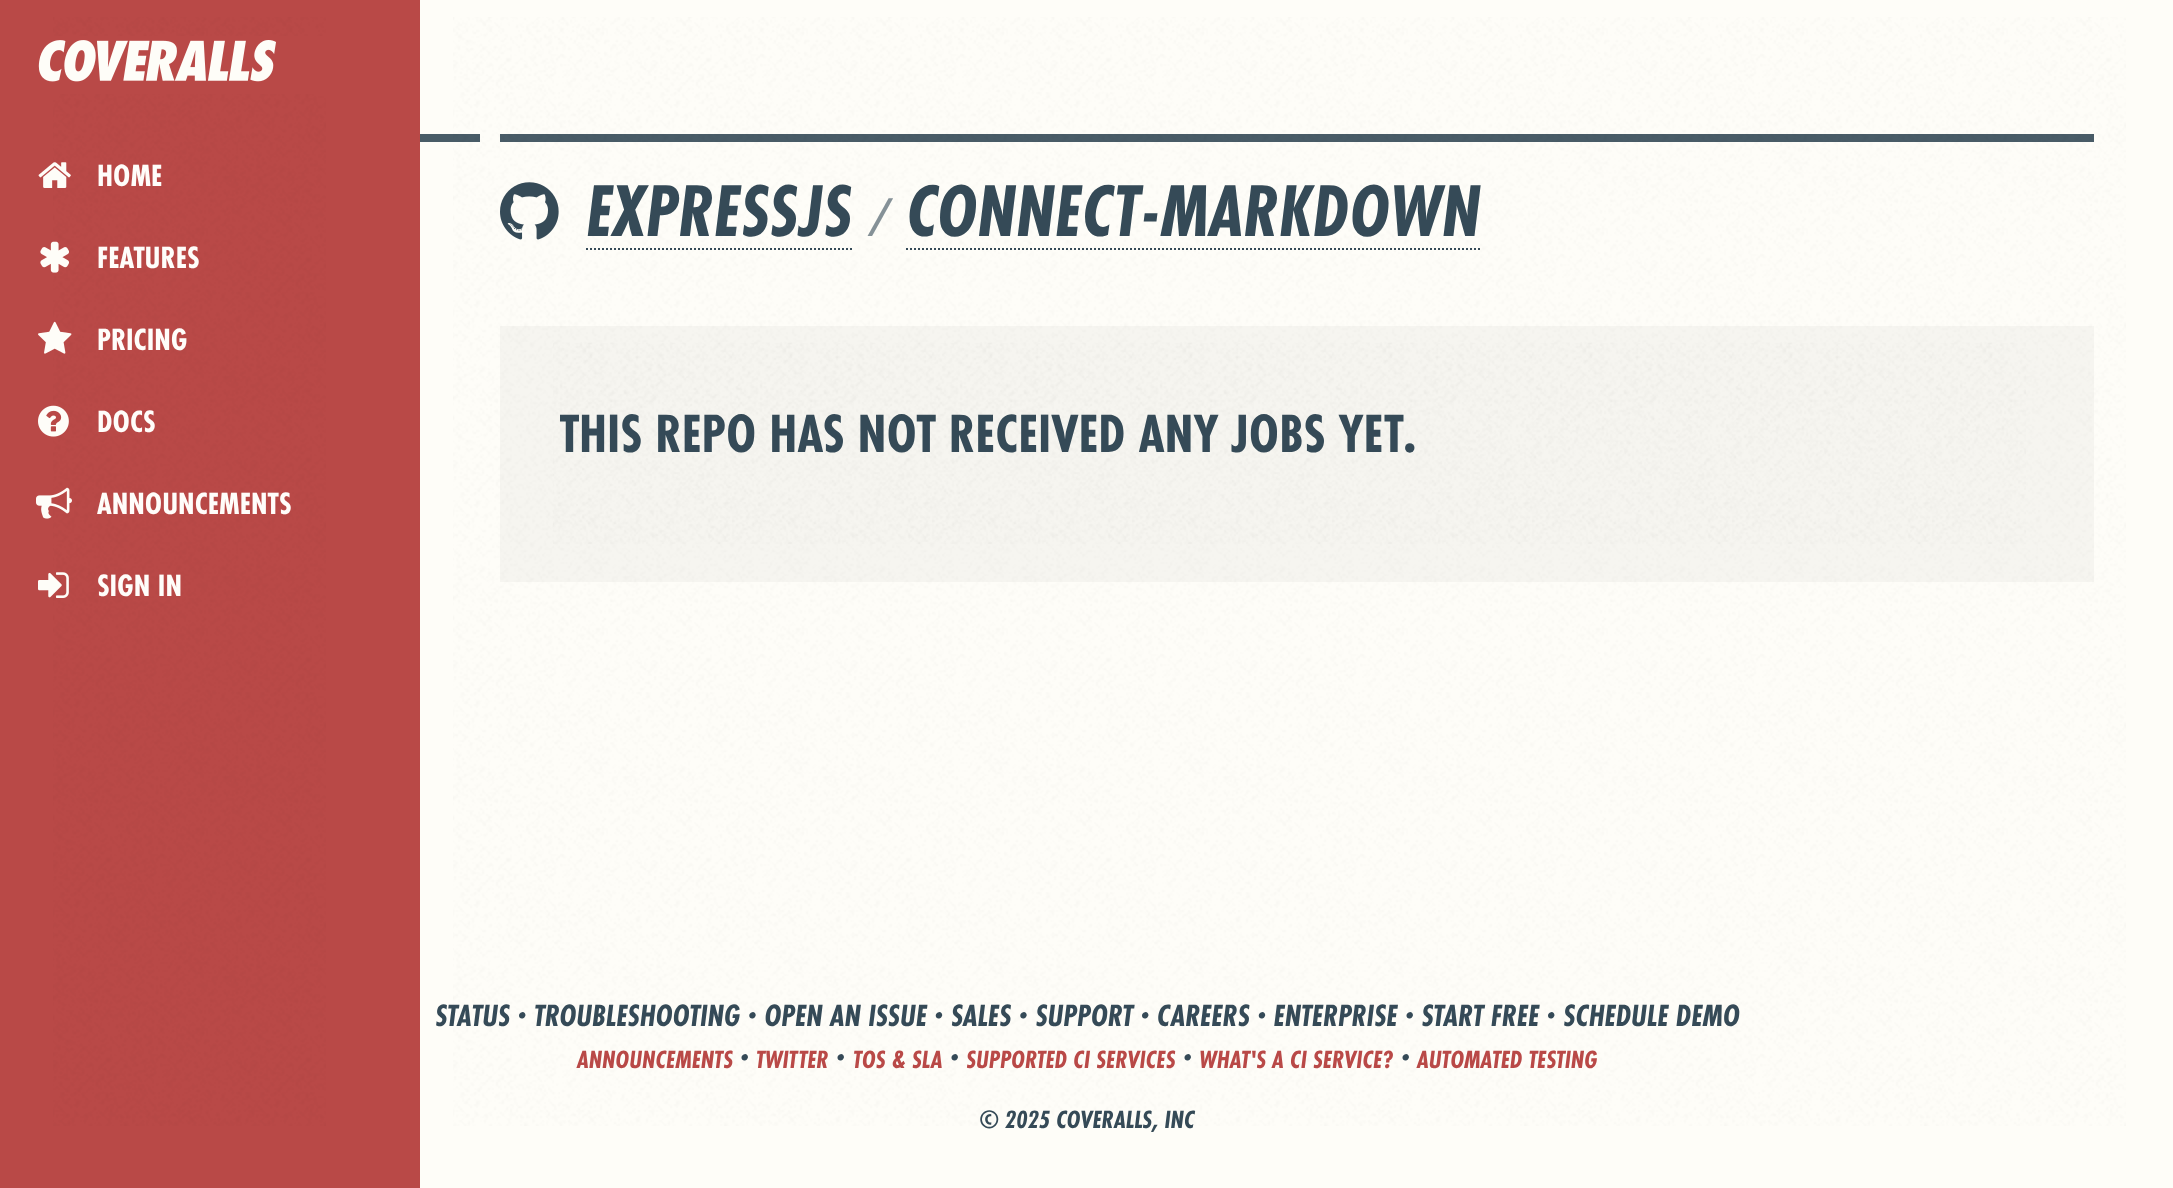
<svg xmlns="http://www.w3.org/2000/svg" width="2173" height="1188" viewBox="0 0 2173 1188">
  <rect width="100%" height="100%" fill="#fefdf8"/>
  <rect x="420" y="134" width="60" height="8" fill="#495c67"/>
  <rect x="500" y="134" width="1594" height="8" fill="#495c67"/>
  <image x="453" y="17" width="1673" height="1109" href="img1.png"/>
  <rect x="0" y="0" width="420" height="1188" fill="#b94947"/>
  <image x="53" y="17" width="273" height="1109" href="img2.png"/>
  <rect x="53" y="36" width="273" height="58" fill="#b94947"/>
  <image x="38" y="40" width="238" height="42" href="img3.png"/>
  <image x="38" y="162" width="33" height="26" href="img4.png"/>
  <text x="97" y="186" font-family="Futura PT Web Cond" font-size="32" font-weight="bold" fill="#fffdfa">HOME</text>
  <image x="40" y="241" width="29" height="32" href="img5.png"/>
  <text x="97" y="268" font-family="Futura PT Web Cond" font-size="32" font-weight="bold" fill="#fffdfa">FEATURES</text>
  <image x="38" y="321" width="34" height="33" href="img6.png"/>
  <text x="97" y="350" font-family="Futura PT Web Cond" font-size="32" font-weight="bold" fill="#fffdfa">PRICING</text>
  <image x="38" y="405" width="31" height="32" href="img7.png"/>
  <text x="97" y="432" font-family="Futura PT Web Cond" font-size="32" font-weight="bold" fill="#fffdfa">DOCS</text>
  <image x="36" y="487" width="36" height="32" href="img8.png"/>
  <text x="97" y="514" font-family="Futura PT Web Cond" font-size="32" font-weight="bold" fill="#fffdfa">ANNOUNCEMENTS</text>
  <image x="38" y="572" width="31" height="26" href="img9.png"/>
  <text x="97" y="596" font-family="Futura PT Web Cond" font-size="32" font-weight="bold" fill="#fffdfa">SIGN IN</text>
  <image x="500" y="182" width="59" height="58" href="img10.png"/>
  <path d="M586 249H852" fill="none" stroke="#354a57" stroke-width="2" stroke-dasharray="2 2"/>
  <text x="586" y="236" font-family="Futura PT Web Cond" font-size="76" font-weight="bold" font-style="italic" fill="#354a57">EXPRESSJS</text>
  <text x="870" y="236" font-family="Open Sans" font-size="53" font-style="italic" fill="#859197">/</text>
  <path d="M906 249H1480" fill="none" stroke="#354a57" stroke-width="2" stroke-dasharray="2 2"/>
  <text x="906" y="236" font-family="Futura PT Web Cond" font-size="76" font-weight="bold" font-style="italic" fill="#354a57">CONNECT-MARKDOWN</text>
  <rect x="500" y="326" width="1594" height="256" fill="#000000" fill-opacity="0.03"/>
  <image x="553" y="343" width="1473" height="201" href="img11.png"/>
  <text x="560" y="452" font-family="Futura PT Web Cond" font-size="56" font-weight="bold" fill="#354a57">THIS REPO HAS NOT RECEIVED ANY JOBS YET.</text>
  <text x="435" y="1026" font-family="Futura PT Web Cond" font-size="32" font-weight="bold" font-style="italic" fill="#354a57">STATUS · TROUBLESHOOTING · OPEN AN ISSUE · SALES · SUPPORT · CAREERS · ENTERPRISE · START FREE · SCHEDULE DEMO</text>
  <text x="577" y="1068" font-family="Futura PT Web Cond" font-size="26" font-weight="bold" font-style="italic" fill="#b94947">ANNOUNCEMENTS</text>
  <text x="740" y="1068" font-family="Futura PT Web Cond" font-size="32" font-weight="bold" font-style="italic" fill="#354a57">·</text>
  <text x="756" y="1068" font-family="Futura PT Web Cond" font-size="26" font-weight="bold" font-style="italic" fill="#b94947">TWITTER</text>
  <text x="836" y="1068" font-family="Futura PT Web Cond" font-size="32" font-weight="bold" font-style="italic" fill="#354a57">·</text>
  <text x="853" y="1068" font-family="Futura PT Web Cond" font-size="26" font-weight="bold" font-style="italic" fill="#b94947">TOS &amp; SLA</text>
  <text x="950" y="1068" font-family="Futura PT Web Cond" font-size="32" font-weight="bold" font-style="italic" fill="#354a57">·</text>
  <text x="966" y="1068" font-family="Futura PT Web Cond" font-size="26" font-weight="bold" font-style="italic" fill="#b94947">SUPPORTED CI SERVICES</text>
  <text x="1183" y="1068" font-family="Futura PT Web Cond" font-size="32" font-weight="bold" font-style="italic" fill="#354a57">·</text>
  <text x="1199" y="1068" font-family="Futura PT Web Cond" font-size="26" font-weight="bold" font-style="italic" fill="#b94947">WHAT'S A CI SERVICE?</text>
  <text x="1401" y="1068" font-family="Futura PT Web Cond" font-size="32" font-weight="bold" font-style="italic" fill="#354a57">·</text>
  <text x="1417" y="1068" font-family="Futura PT Web Cond" font-size="26" font-weight="bold" font-style="italic" fill="#b94947">AUTOMATED TESTING</text>
  <text x="979" y="1128" font-family="Futura PT Web Cond" font-size="26" font-weight="bold" font-style="italic" fill="#354a57">© 2025 COVERALLS, INC</text>
</svg>
